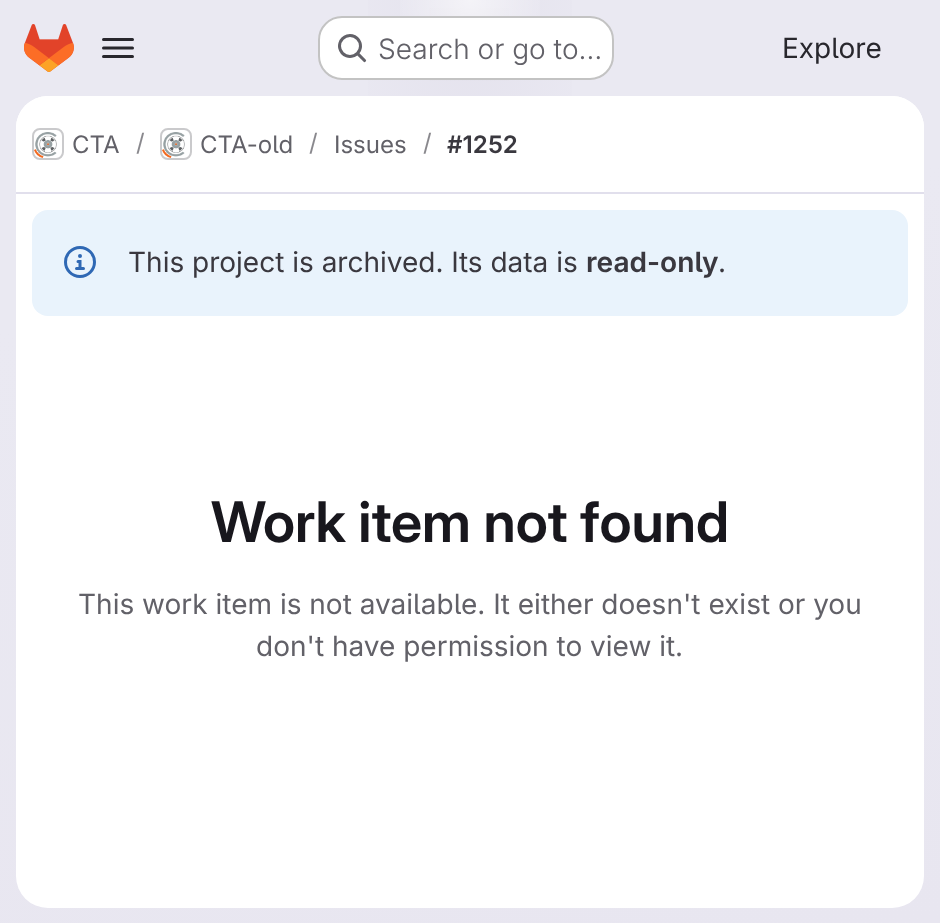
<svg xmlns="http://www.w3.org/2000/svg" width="940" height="923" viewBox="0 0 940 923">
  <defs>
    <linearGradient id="g1" gradientUnits="userSpaceOnUse" x1="563" y1="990" x2="377" y2="-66"><stop offset="0" stop-color="#e8e6f0"/><stop offset="0.7" stop-color="#eae9f2"/></linearGradient>
    <radialGradient id="g2" gradientUnits="userSpaceOnUse" cx="0" cy="0" r="1" gradientTransform="matrix(470 0 0 924 470 0)"><stop offset="0" stop-color="#e4e2ed"/><stop offset="0.3" stop-color="#e4e2ed" stop-opacity="0"/></radialGradient>
    <radialGradient id="g3" gradientUnits="userSpaceOnUse" cx="0" cy="0" r="1" gradientTransform="matrix(470 0 0 924 470 0)"><stop offset="0" stop-color="#e4e2ec"/><stop offset="0.21" stop-color="#e4e2ec" stop-opacity="0"/></radialGradient>
    <radialGradient id="g4" gradientUnits="userSpaceOnUse" cx="470" cy="0" r="1037"><stop offset="0" stop-color="#ffffff" stop-opacity="0.6"/><stop offset="0.08" stop-color="#ffffff" stop-opacity="0"/></radialGradient>
  </defs>
  <rect width="100%" height="100%" fill="#ffffff"/>
  <rect x="0" y="0" width="940" height="923" fill="url(#g1)"/>
  <rect x="368" y="0" width="204" height="96" fill="url(#g2)"/>
  <rect x="429" y="8" width="80" height="73" fill="url(#g3)"/>
  <rect x="400" y="0" width="140" height="16" fill="url(#g4)"/>
  <image x="24" y="24" width="50" height="48" href="img1.png"/>
  <image x="102" y="38" width="32" height="20" href="img2.png"/>
  <rect x="318" y="16" width="296" height="64" rx="24" fill="#ffffff"/>
  <rect x="319" y="17" width="294" height="62" rx="23" fill="none" stroke="#050506" stroke-opacity="0.24" stroke-width="2"/>
  <image x="338" y="34" width="29" height="29" href="img3.png"/>
  <text x="378" y="59" font-family="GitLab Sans" font-size="28" font-weight="300" fill="#626168">Search or go to…</text>
  <text x="782" y="58" font-family="GitLab Sans" font-size="28" fill="#28272d">Explore</text>
  <rect x="16" y="96" width="908" height="812" rx="32" fill="#ffffff"/>
  <path d="M48 96H892C909.5 96 924 110.5 924 128V194H16V128C16 110.5 30.5 96 48 96Z" fill="#ffffff"/>
  <rect x="16" y="192" width="908" height="2" fill="#e1dfec"/>
  <rect x="33" y="129" width="30" height="30" rx="7" fill="none" stroke="#dcdcde" stroke-width="2"/>
  <image x="34" y="132" width="23" height="26" href="img4.png"/>
  <rect x="33" y="129" width="30" height="30" rx="7" fill="none" stroke="#050506" stroke-opacity="0.08" stroke-width="2"/>
  <text x="72" y="153" font-family="GitLab Sans" font-size="24" fill="#626168">CTA</text>
  <text x="136" y="151" font-family="GitLab Sans" font-size="24" fill="#89888d">/</text>
  <rect x="161" y="129" width="30" height="30" rx="7" fill="none" stroke="#dcdcde" stroke-width="2"/>
  <image x="162" y="132" width="23" height="26" href="img4.png"/>
  <rect x="161" y="129" width="30" height="30" rx="7" fill="none" stroke="#050506" stroke-opacity="0.08" stroke-width="2"/>
  <text x="200" y="153" font-family="GitLab Sans" font-size="24" fill="#626168">CTA-old</text>
  <text x="309" y="151" font-family="GitLab Sans" font-size="24" fill="#89888d">/</text>
  <text x="334" y="153" font-family="GitLab Sans" font-size="24" fill="#626168">Issues</text>
  <text x="423" y="151" font-family="GitLab Sans" font-size="24" fill="#89888d">/</text>
  <text x="447" y="153" font-family="'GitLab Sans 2'" font-size="24" font-weight="600" fill="#3a383f">#1252</text>
  <rect x="32" y="210" width="876" height="106" rx="16" fill="#e9f3fc"/>
  <image x="64" y="246" width="32" height="32" href="img5.png"/>
  <text x="128" y="272" font-family="GitLab Sans" font-size="28" fill="#3a383f">This project is archived. Its data is</text>
  <text x="586" y="272" font-family="'GitLab Sans 2'" font-size="28" font-weight="600" fill="#3a383f">read-only</text>
  <text x="718" y="272" font-family="GitLab Sans" font-size="28" fill="#3a383f">.</text>
  <text x="211" y="542" font-family="GitLab Sans" font-size="56" font-weight="600" fill="#18171d">Work item not found</text>
  <text x="78" y="614" font-family="GitLab Sans" font-size="28" fill="#626168">This work item is not available. It either doesn't exist or you</text>
  <text x="256" y="656" font-family="GitLab Sans" font-size="28" fill="#626168">don't have permission to view it.</text>
</svg>
